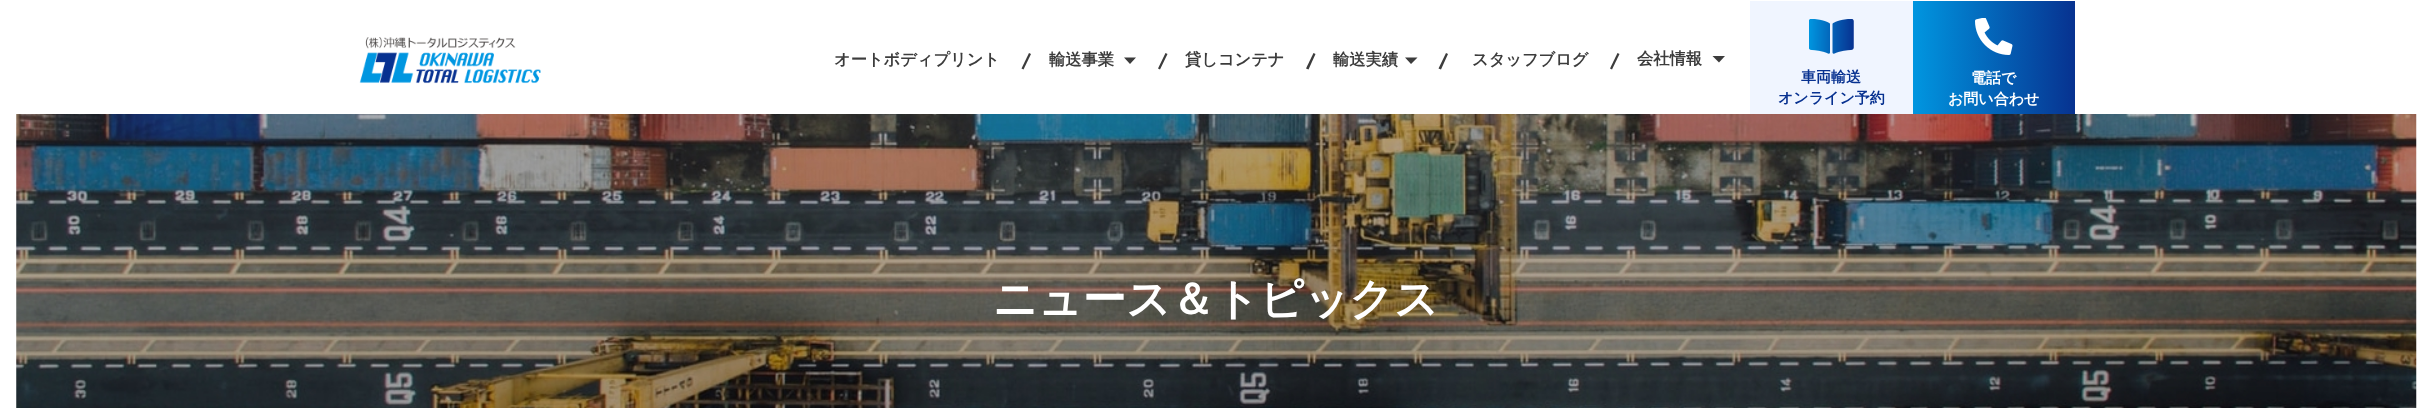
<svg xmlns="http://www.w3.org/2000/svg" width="2431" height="408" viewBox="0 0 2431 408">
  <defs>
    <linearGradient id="g1" gradientUnits="userSpaceOnUse" x1="1913" y1="58" x2="2075" y2="57"><stop offset="0" stop-color="#0096e0"/><stop offset="1" stop-color="#073290"/></linearGradient>
  </defs>
  <rect width="100%" height="100%" fill="#ffffff"/>
  <image x="359" y="37" width="182" height="47" href="img1.png"/>
  <text x="834" y="65" font-family="WenQuanYi Zen Hei" font-size="16.25" font-weight="bold" fill="#3c3c3c">オートボディプリント</text>
  <path d="M1029 53L1031 54L1023.5 69.5L1021.5 68.5Z" fill="#3c3c3c"/>
  <text x="1049" y="65" font-family="WenQuanYi Zen Hei" font-size="16.25" font-weight="bold" fill="#3c3c3c">輸送事業</text>
  <path d="M1124 57.5H1136L1130 64ZM1165.5 53L1167.5 54L1160 69.5L1158 68.5Z" fill="#3c3c3c"/>
  <text x="1185" y="65" font-family="WenQuanYi Zen Hei" font-size="16.25" font-weight="bold" fill="#3c3c3c">貸しコンテナ</text>
  <path d="M1313.5 53L1315.5 54L1308.5 69.5L1306 68.5Z" fill="#3c3c3c"/>
  <text x="1333" y="65" font-family="WenQuanYi Zen Hei" font-size="16.25" font-weight="bold" fill="#3c3c3c">輸送実績</text>
  <path d="M1405 57.5H1417.5L1411 64ZM1446 53L1448 54L1441 69.5L1438.5 68.5Z" fill="#3c3c3c"/>
  <text x="1472" y="65" font-family="WenQuanYi Zen Hei" font-size="16.25" font-weight="bold" fill="#3c3c3c">スタッフブログ</text>
  <path d="M1617.5 53L1619.5 54L1612 69.5L1610 68.5Z" fill="#3c3c3c"/>
  <text x="1637" y="64" font-family="WenQuanYi Zen Hei" font-size="16.25" font-weight="bold" fill="#3c3c3c">会社情報</text>
  <path d="M1712.5 56H1725L1719 62.5Z" fill="#3c3c3c"/>
  <rect x="1750" y="1" width="163" height="113" fill="#f0f5ff"/>
  <image x="1809" y="19" width="45" height="35" href="img2.png"/>
  <text x="1801" y="82" font-family="WenQuanYi Zen Hei" font-size="15" font-weight="bold" fill="#073190">車両輸送</text>
  <text x="1778" y="103" font-family="WenQuanYi Zen Hei" font-size="15" font-weight="bold" fill="#073190">オンライン予約</text>
  <rect x="1913" y="1" width="162" height="113" fill="url(#g1)"/>
  <image x="1975" y="18" width="38" height="37" href="img3.png"/>
  <text x="1971" y="83" font-family="WenQuanYi Zen Hei" font-size="15" font-weight="bold" fill="#ffffff">電話で</text>
  <text x="1948" y="104" font-family="WenQuanYi Zen Hei" font-size="15" font-weight="bold" fill="#ffffff">お問い合わせ</text>
  <image x="16" y="114" width="2401" height="294" href="img4.png"/>
  <text x="993" y="314" font-family="WenQuanYi Zen Hei" font-size="43.75" font-weight="bold" fill="#ffffff">ニュース＆トピックス</text>
</svg>
